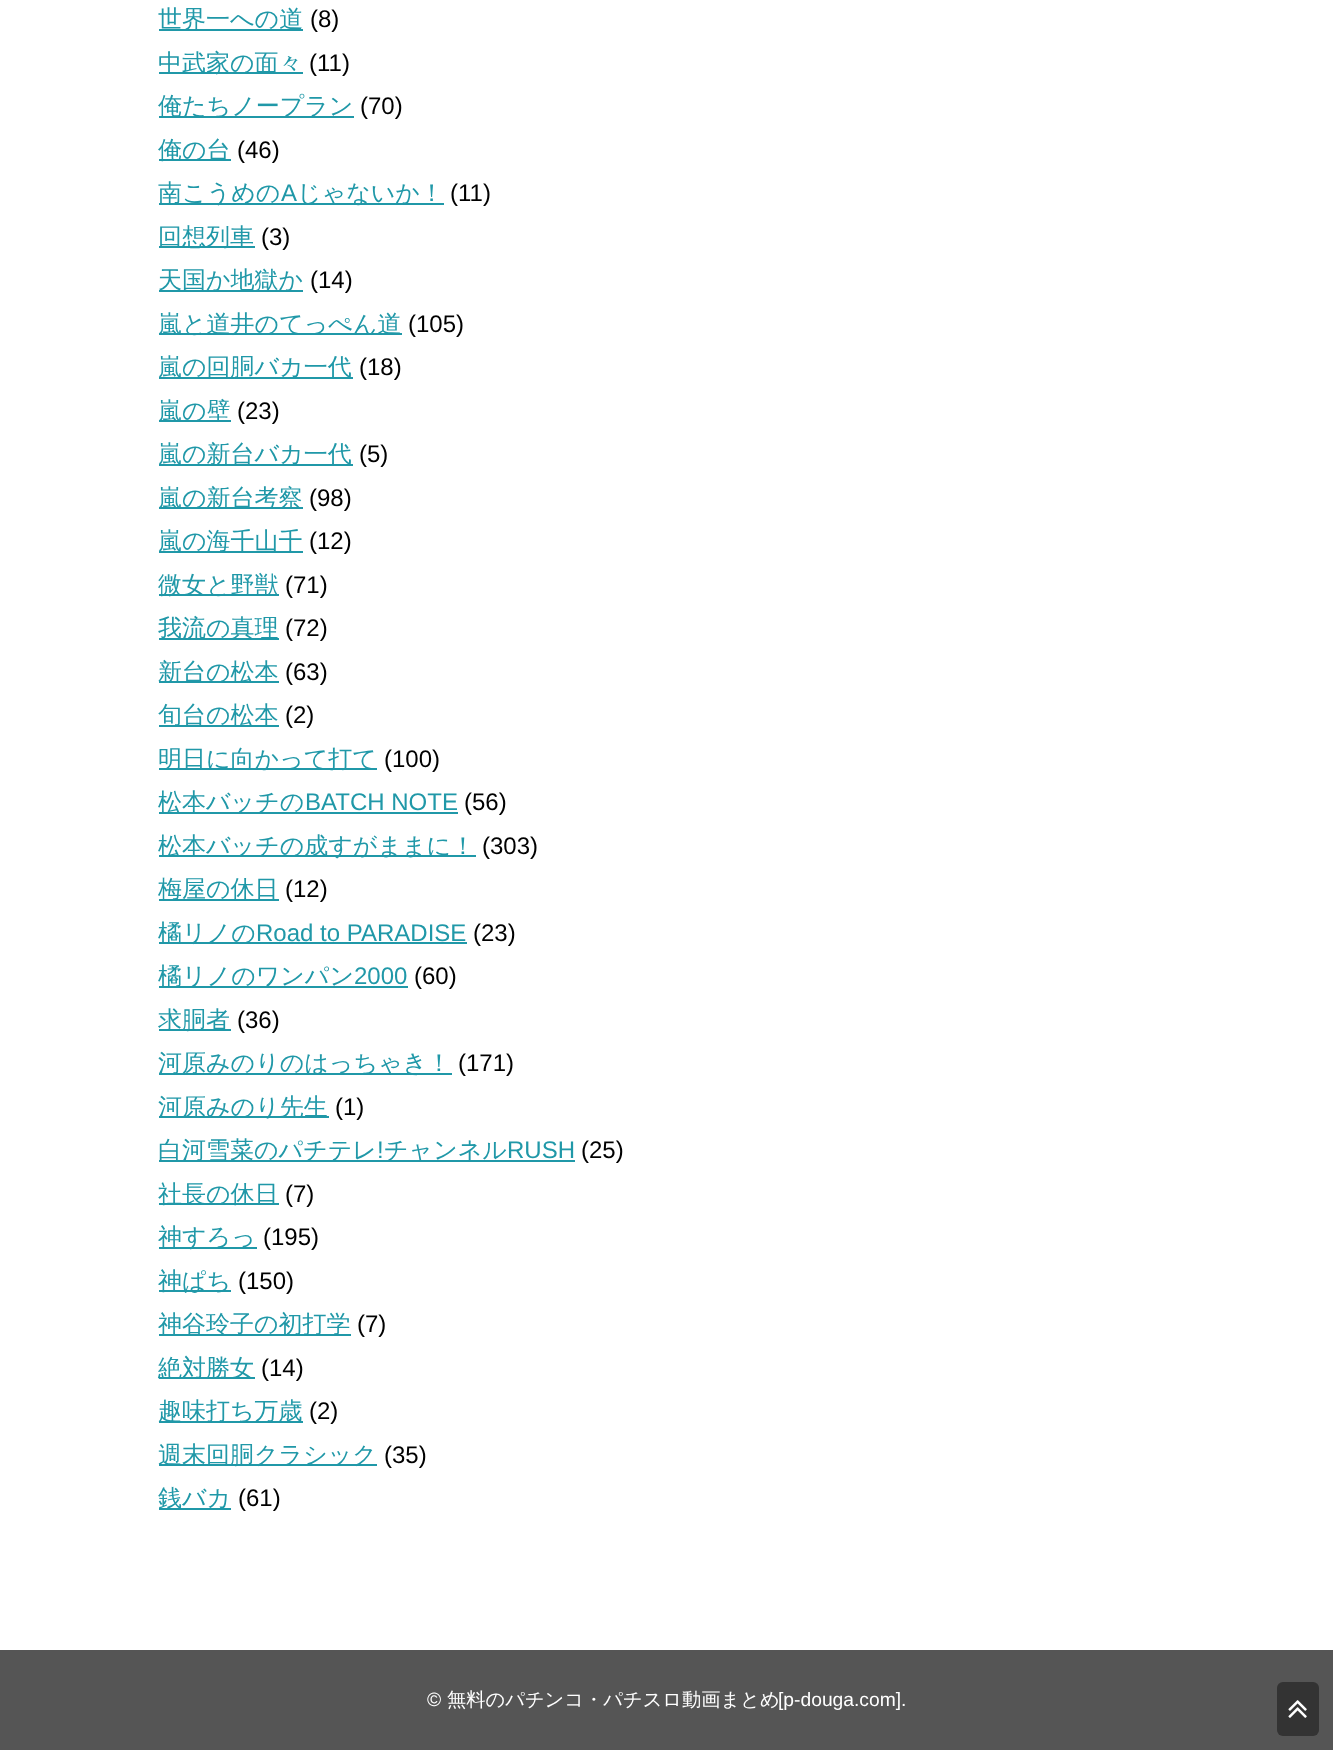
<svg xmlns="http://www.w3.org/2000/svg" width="1333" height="1750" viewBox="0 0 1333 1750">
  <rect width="100%" height="100%" fill="#ffffff"/>
  <rect x="159" y="29" width="144" height="2" fill="#2098a8"/>
  <text x="158" y="27" font-family="WenQuanYi Zen Hei" font-size="24" font-weight="500" fill="#2098a8">世界一への道</text>
  <text x="310" y="27" font-family="Liberation Sans" font-size="24" fill="#000000">(8)</text>
  <rect x="159" y="72" width="144" height="2" fill="#2098a8"/>
  <text x="158" y="71" font-family="WenQuanYi Zen Hei" font-size="24" font-weight="500" fill="#2098a8">中武家の面々</text>
  <text x="309" y="71" font-family="Liberation Sans" font-size="24" fill="#000000">(11)</text>
  <rect x="159" y="116" width="195" height="2" fill="#2098a8"/>
  <text x="158" y="114" font-family="WenQuanYi Zen Hei" font-size="24" font-weight="500" fill="#2098a8">俺たちノープラン</text>
  <text x="360" y="114" font-family="Liberation Sans" font-size="24" fill="#000000">(70)</text>
  <rect x="159" y="159" width="72" height="2" fill="#2098a8"/>
  <text x="158" y="158" font-family="WenQuanYi Zen Hei" font-size="24" font-weight="500" fill="#2098a8">俺の台</text>
  <text x="237" y="158" font-family="Liberation Sans" font-size="24" fill="#000000">(46)</text>
  <rect x="159" y="203" width="285" height="2" fill="#2098a8"/>
  <text x="158" y="201" font-family="WenQuanYi Zen Hei" font-size="24" font-weight="500" fill="#2098a8">南こうめの</text>
  <text x="281" y="201" font-family="Liberation Sans" font-size="24" fill="#2098a8">A</text>
  <text x="297" y="201" font-family="WenQuanYi Zen Hei" font-size="24" font-weight="500" fill="#2098a8">じゃないか！</text>
  <text x="450" y="201" font-family="Liberation Sans" font-size="24" fill="#000000">(11)</text>
  <rect x="159" y="246" width="96" height="2" fill="#2098a8"/>
  <text x="158" y="245" font-family="WenQuanYi Zen Hei" font-size="24" font-weight="500" fill="#2098a8">回想列車</text>
  <text x="261" y="245" font-family="Liberation Sans" font-size="24" fill="#000000">(3)</text>
  <rect x="159" y="290" width="144" height="2" fill="#2098a8"/>
  <text x="158" y="288" font-family="WenQuanYi Zen Hei" font-size="24" font-weight="500" fill="#2098a8">天国か地獄か</text>
  <text x="310" y="288" font-family="Liberation Sans" font-size="24" fill="#000000">(14)</text>
  <rect x="159" y="333" width="243" height="2" fill="#2098a8"/>
  <text x="158" y="332" font-family="WenQuanYi Zen Hei" font-size="24" font-weight="500" fill="#2098a8">嵐と道井のてっぺん道</text>
  <text x="408" y="332" font-family="Liberation Sans" font-size="24" fill="#000000">(105)</text>
  <rect x="159" y="377" width="194" height="2" fill="#2098a8"/>
  <text x="158" y="375" font-family="WenQuanYi Zen Hei" font-size="24" font-weight="500" fill="#2098a8">嵐の回胴バカ一代</text>
  <text x="359" y="375" font-family="Liberation Sans" font-size="24" fill="#000000">(18)</text>
  <rect x="159" y="420" width="72" height="2" fill="#2098a8"/>
  <text x="158" y="419" font-family="WenQuanYi Zen Hei" font-size="24" font-weight="500" fill="#2098a8">嵐の壁</text>
  <text x="237" y="419" font-family="Liberation Sans" font-size="24" fill="#000000">(23)</text>
  <rect x="159" y="464" width="194" height="2" fill="#2098a8"/>
  <text x="158" y="462" font-family="WenQuanYi Zen Hei" font-size="24" font-weight="500" fill="#2098a8">嵐の新台バカ一代</text>
  <text x="359" y="462" font-family="Liberation Sans" font-size="24" fill="#000000">(5)</text>
  <rect x="159" y="507" width="144" height="2" fill="#2098a8"/>
  <text x="158" y="506" font-family="WenQuanYi Zen Hei" font-size="24" font-weight="500" fill="#2098a8">嵐の新台考察</text>
  <text x="309" y="506" font-family="Liberation Sans" font-size="24" fill="#000000">(98)</text>
  <rect x="159" y="551" width="144" height="2" fill="#2098a8"/>
  <text x="158" y="549" font-family="WenQuanYi Zen Hei" font-size="24" font-weight="500" fill="#2098a8">嵐の海千山千</text>
  <text x="309" y="549" font-family="Liberation Sans" font-size="24" fill="#000000">(12)</text>
  <rect x="159" y="594" width="120" height="2" fill="#2098a8"/>
  <text x="158" y="593" font-family="WenQuanYi Zen Hei" font-size="24" font-weight="500" fill="#2098a8">微女と野獣</text>
  <text x="285" y="593" font-family="Liberation Sans" font-size="24" fill="#000000">(71)</text>
  <rect x="159" y="638" width="120" height="2" fill="#2098a8"/>
  <text x="158" y="636" font-family="WenQuanYi Zen Hei" font-size="24" font-weight="500" fill="#2098a8">我流の真理</text>
  <text x="285" y="636" font-family="Liberation Sans" font-size="24" fill="#000000">(72)</text>
  <rect x="159" y="681" width="120" height="2" fill="#2098a8"/>
  <text x="158" y="680" font-family="WenQuanYi Zen Hei" font-size="24" font-weight="500" fill="#2098a8">新台の松本</text>
  <text x="285" y="680" font-family="Liberation Sans" font-size="24" fill="#000000">(63)</text>
  <rect x="159" y="725" width="120" height="2" fill="#2098a8"/>
  <text x="158" y="723" font-family="WenQuanYi Zen Hei" font-size="24" font-weight="500" fill="#2098a8">旬台の松本</text>
  <text x="285" y="723" font-family="Liberation Sans" font-size="24" fill="#000000">(2)</text>
  <rect x="159" y="768" width="218" height="2" fill="#2098a8"/>
  <text x="158" y="767" font-family="WenQuanYi Zen Hei" font-size="24" font-weight="500" fill="#2098a8">明日に向かって打て</text>
  <text x="384" y="767" font-family="Liberation Sans" font-size="24" fill="#000000">(100)</text>
  <rect x="159" y="812" width="299" height="2" fill="#2098a8"/>
  <text x="158" y="810" font-family="WenQuanYi Zen Hei" font-size="24" font-weight="500" fill="#2098a8">松本バッチの</text>
  <text x="305" y="810" font-family="Liberation Sans" font-size="24" fill="#2098a8">BATCH NOTE</text>
  <text x="464" y="810" font-family="Liberation Sans" font-size="24" fill="#000000">(56)</text>
  <rect x="159" y="855" width="317" height="2" fill="#2098a8"/>
  <text x="158" y="854" font-family="WenQuanYi Zen Hei" font-size="24" font-weight="500" fill="#2098a8">松本バッチの成すがままに！</text>
  <text x="482" y="854" font-family="Liberation Sans" font-size="24" fill="#000000">(303)</text>
  <rect x="159" y="899" width="120" height="2" fill="#2098a8"/>
  <text x="158" y="897" font-family="WenQuanYi Zen Hei" font-size="24" font-weight="500" fill="#2098a8">梅屋の休日</text>
  <text x="285" y="897" font-family="Liberation Sans" font-size="24" fill="#000000">(12)</text>
  <rect x="159" y="942" width="308" height="2" fill="#2098a8"/>
  <text x="158" y="941" font-family="WenQuanYi Zen Hei" font-size="24" font-weight="500" fill="#2098a8">橘リノの</text>
  <text x="256" y="941" font-family="Liberation Sans" font-size="24" fill="#2098a8">Road to PARADISE</text>
  <text x="473" y="941" font-family="Liberation Sans" font-size="24" fill="#000000">(23)</text>
  <rect x="159" y="986" width="249" height="2" fill="#2098a8"/>
  <text x="158" y="984" font-family="WenQuanYi Zen Hei" font-size="24" font-weight="500" fill="#2098a8">橘リノのワンパン</text>
  <text x="354" y="984" font-family="Liberation Sans" font-size="24" fill="#2098a8">2000</text>
  <text x="414" y="984" font-family="Liberation Sans" font-size="24" fill="#000000">(60)</text>
  <rect x="159" y="1029" width="72" height="2" fill="#2098a8"/>
  <text x="158" y="1028" font-family="WenQuanYi Zen Hei" font-size="24" font-weight="500" fill="#2098a8">求胴者</text>
  <text x="237" y="1028" font-family="Liberation Sans" font-size="24" fill="#000000">(36)</text>
  <rect x="159" y="1073" width="293" height="2" fill="#2098a8"/>
  <text x="158" y="1071" font-family="WenQuanYi Zen Hei" font-size="24" font-weight="500" fill="#2098a8">河原みのりのはっちゃき！</text>
  <text x="458" y="1071" font-family="Liberation Sans" font-size="24" fill="#000000">(171)</text>
  <rect x="159" y="1116" width="170" height="2" fill="#2098a8"/>
  <text x="158" y="1115" font-family="WenQuanYi Zen Hei" font-size="24" font-weight="500" fill="#2098a8">河原みのり先生</text>
  <text x="335" y="1115" font-family="Liberation Sans" font-size="24" fill="#000000">(1)</text>
  <rect x="159" y="1160" width="416" height="2" fill="#2098a8"/>
  <text x="158" y="1158" font-family="WenQuanYi Zen Hei" font-size="24" font-weight="500" fill="#2098a8">白河雪菜のパチテレ</text>
  <text x="377" y="1158" font-family="Liberation Sans" font-size="24" fill="#2098a8">!</text>
  <text x="384" y="1158" font-family="WenQuanYi Zen Hei" font-size="24" font-weight="500" fill="#2098a8">チャンネル</text>
  <text x="507" y="1158" font-family="Liberation Sans" font-size="24" fill="#2098a8">RUSH</text>
  <text x="581" y="1158" font-family="Liberation Sans" font-size="24" fill="#000000">(25)</text>
  <rect x="159" y="1203" width="120" height="2" fill="#2098a8"/>
  <text x="158" y="1202" font-family="WenQuanYi Zen Hei" font-size="24" font-weight="500" fill="#2098a8">社長の休日</text>
  <text x="285" y="1202" font-family="Liberation Sans" font-size="24" fill="#000000">(7)</text>
  <rect x="159" y="1247" width="98" height="2" fill="#2098a8"/>
  <text x="158" y="1245" font-family="WenQuanYi Zen Hei" font-size="24" font-weight="500" fill="#2098a8">神すろっ</text>
  <text x="263" y="1245" font-family="Liberation Sans" font-size="24" fill="#000000">(195)</text>
  <rect x="159" y="1290" width="72" height="2" fill="#2098a8"/>
  <text x="158" y="1289" font-family="WenQuanYi Zen Hei" font-size="24" font-weight="500" fill="#2098a8">神ぱち</text>
  <text x="238" y="1289" font-family="Liberation Sans" font-size="24" fill="#000000">(150)</text>
  <rect x="159" y="1334" width="192" height="2" fill="#2098a8"/>
  <text x="158" y="1332" font-family="WenQuanYi Zen Hei" font-size="24" font-weight="500" fill="#2098a8">神谷玲子の初打学</text>
  <text x="357" y="1332" font-family="Liberation Sans" font-size="24" fill="#000000">(7)</text>
  <rect x="159" y="1377" width="96" height="2" fill="#2098a8"/>
  <text x="158" y="1376" font-family="WenQuanYi Zen Hei" font-size="24" font-weight="500" fill="#2098a8">絶対勝女</text>
  <text x="261" y="1376" font-family="Liberation Sans" font-size="24" fill="#000000">(14)</text>
  <rect x="159" y="1421" width="144" height="2" fill="#2098a8"/>
  <text x="158" y="1419" font-family="WenQuanYi Zen Hei" font-size="24" font-weight="500" fill="#2098a8">趣味打ち万歳</text>
  <text x="309" y="1419" font-family="Liberation Sans" font-size="24" fill="#000000">(2)</text>
  <rect x="159" y="1464" width="218" height="2" fill="#2098a8"/>
  <text x="158" y="1463" font-family="WenQuanYi Zen Hei" font-size="24" font-weight="500" fill="#2098a8">週末回胴クラシック</text>
  <text x="384" y="1463" font-family="Liberation Sans" font-size="24" fill="#000000">(35)</text>
  <rect x="159" y="1508" width="72" height="2" fill="#2098a8"/>
  <text x="158" y="1506" font-family="WenQuanYi Zen Hei" font-size="24" font-weight="500" fill="#2098a8">銭バカ</text>
  <text x="238" y="1506" font-family="Liberation Sans" font-size="24" fill="#000000">(61)</text>
  <rect x="0" y="1650" width="1333" height="100" fill="#555555"/>
  <text x="427" y="1706" font-family="Liberation Sans" font-size="19.25" fill="#ffffff">©</text>
  <text x="447" y="1706" font-family="WenQuanYi Zen Hei" font-size="19.25" font-weight="500" fill="#ffffff">無料のパチンコ・パチスロ動画まとめ</text>
  <text x="778" y="1706" font-family="Liberation Sans" font-size="19.25" fill="#ffffff">[p-douga.com].</text>
  <rect x="1277" y="1682" width="42" height="54" rx="6" fill="#333333"/>
  <image x="1288" y="1700" width="19" height="18" href="img1.png"/>
</svg>
